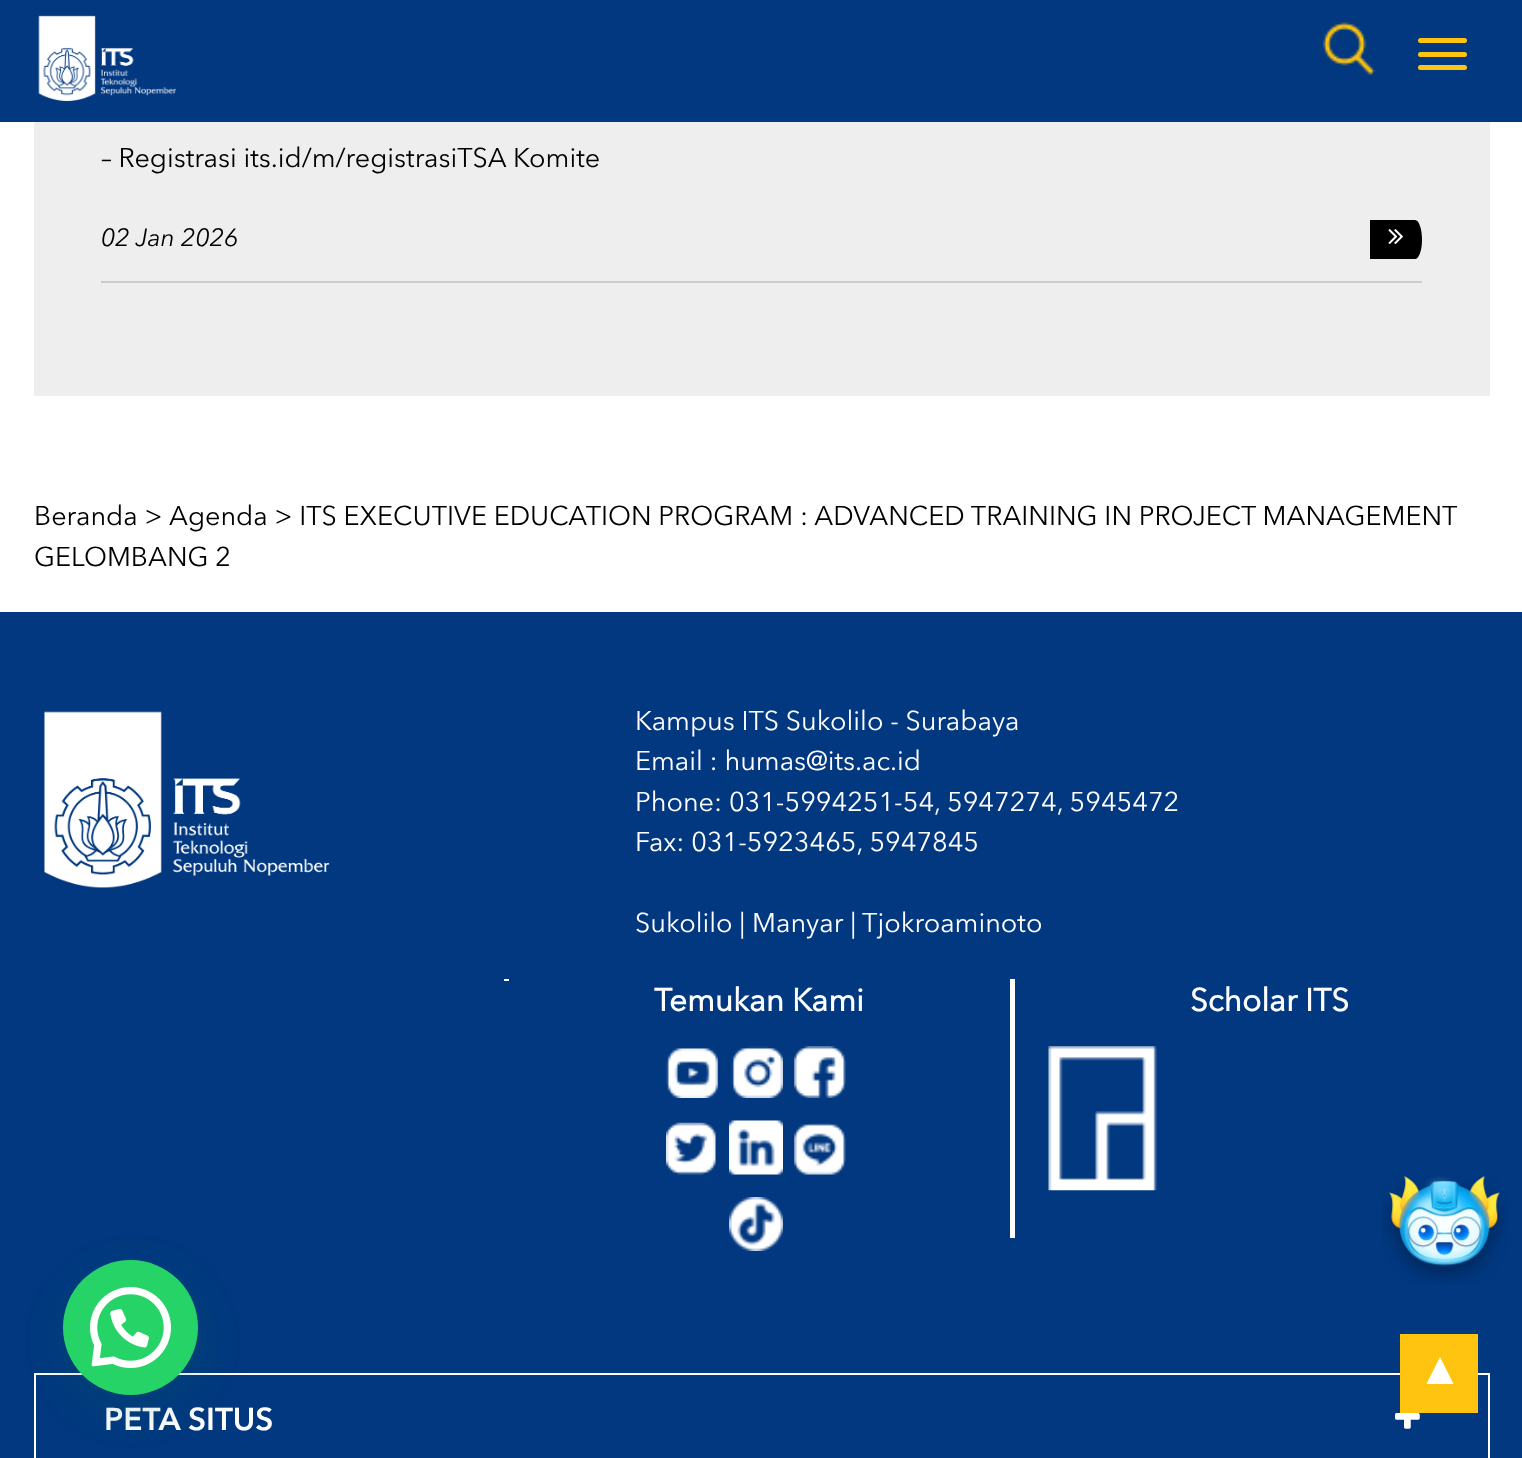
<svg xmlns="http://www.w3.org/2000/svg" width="1522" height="1458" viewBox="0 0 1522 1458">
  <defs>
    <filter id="blur1" x="-50%" y="-200%" width="200%" height="500%"><feGaussianBlur stdDeviation="27"/></filter>
  </defs>
  <rect width="100%" height="100%" fill="#ffffff"/>
  <rect x="0" y="0" width="1522" height="122" fill="#013880"/>
  <image x="38" y="15" width="139" height="87" href="img1.png"/>
  <rect x="1418" y="38" width="49" height="5" rx="2.5" fill="#ffc410"/>
  <rect x="1418" y="52" width="49" height="5" rx="2.5" fill="#ffc410"/>
  <rect x="1418" y="65" width="49" height="5" rx="2.5" fill="#ffc410"/>
  <image x="1323" y="22" width="53" height="53" href="img2.png"/>
  <rect x="34" y="122" width="1456" height="274" fill="#eeeeee"/>
  <rect x="101" y="281" width="1321" height="2" fill="#cccccc"/>
  <text x="101" y="167" font-family="Avenir Next" font-size="27" fill="#000000">– Registrasi its.id/m/registrasiTSA Komite</text>
  <text x="101" y="246" font-family="Avenir Next" font-size="24.75" font-style="italic" fill="#000000">02 Jan 2026</text>
  <path d="M1370 220H1415C1419 220 1422 229 1422 240C1422 250 1419 259 1415 259H1370Z" fill="#000000"/>
  <image x="1388" y="229" width="15" height="15" href="img3.png"/>
  <text x="34" y="525" font-family="Avenir Next" font-size="27" fill="#000000">Beranda &gt;</text>
  <text x="169" y="525" font-family="Avenir Next" font-size="27" fill="#000000">Agenda &gt; ITS EXECUTIVE EDUCATION PROGRAM : ADVANCED TRAINING IN PROJECT MANAGEMENT</text>
  <text x="34" y="566" font-family="Avenir Next" font-size="27" fill="#000000">GELOMBANG 2</text>
  <rect x="0" y="612" width="1522" height="846" fill="#013880"/>
  <image x="44" y="711" width="286" height="177" href="img4.png"/>
  <text x="635" y="730" font-family="Avenir Next" font-size="27" fill="#ffffff">Kampus ITS Sukolilo - Surabaya</text>
  <text x="635" y="770" font-family="Avenir Next" font-size="27" fill="#ffffff">Email : humas@its.ac.id</text>
  <text x="635" y="811" font-family="Avenir Next" font-size="27" fill="#ffffff">Phone: 031-5994251-54, 5947274, 5945472</text>
  <text x="635" y="851" font-family="Avenir Next" font-size="27" fill="#ffffff">Fax: 031-5923465, 5947845</text>
  <text x="635" y="932" font-family="Avenir Next" font-size="27" fill="#ffffff">Sukolilo | Manyar |</text>
  <text x="862" y="932" font-family="Avenir Next" font-size="27" fill="#ffffff">Tjokroaminoto</text>
  <rect x="504" y="979" width="5" height="2" fill="#ffffff"/>
  <rect x="1010" y="979" width="5" height="259" fill="#ffffff"/>
  <text x="654" y="1011" font-family="Avenir Next" font-size="31.5" font-weight="bold" fill="#ffffff">Temukan Kami</text>
  <image x="666" y="1048" width="52" height="50" href="img5.png"/>
  <image x="731" y="1046" width="52" height="52" href="img6.png"/>
  <image x="794" y="1046" width="52" height="52" href="img7.png"/>
  <image x="666" y="1122" width="50" height="53" href="img8.png"/>
  <image x="729" y="1120" width="54" height="55" href="img9.png"/>
  <image x="794" y="1123" width="52" height="52" href="img10.png"/>
  <image x="729" y="1197" width="54" height="54" href="img11.png"/>
  <text x="1190" y="1011" font-family="Avenir Next" font-size="31.5" font-weight="bold" fill="#ffffff">Scholar ITS</text>
  <image x="1048" y="1046" width="109" height="145" href="img12.png"/>
  <rect x="35" y="1374" width="1454" height="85" fill="none" stroke="#ffffff" stroke-width="2"/>
  <text x="104" y="1430" font-family="Avenir Next" font-size="31.5" font-weight="600" fill="#ffffff">PETA SITUS</text>
  <image x="1395" y="1413" width="25" height="16" href="img13.png"/>
  <image x="1382" y="1176" width="126" height="108" href="img14.png"/>
  <rect x="65" y="1274" width="135" height="135" rx="67.5" fill="#075e54" fill-opacity="0.24" filter="url(#blur1)"/>
  <circle cx="130.5" cy="1327.5" r="67.5" fill="#25d366"/>
  <image x="90" y="1287" width="81" height="81" href="img15.png"/>
  <rect x="1400" y="1334" width="78" height="79" fill="#ffc410"/>
  <path d="M1453.5 1384H1426.5L1440 1357Z" fill="#ffffff"/>
</svg>
